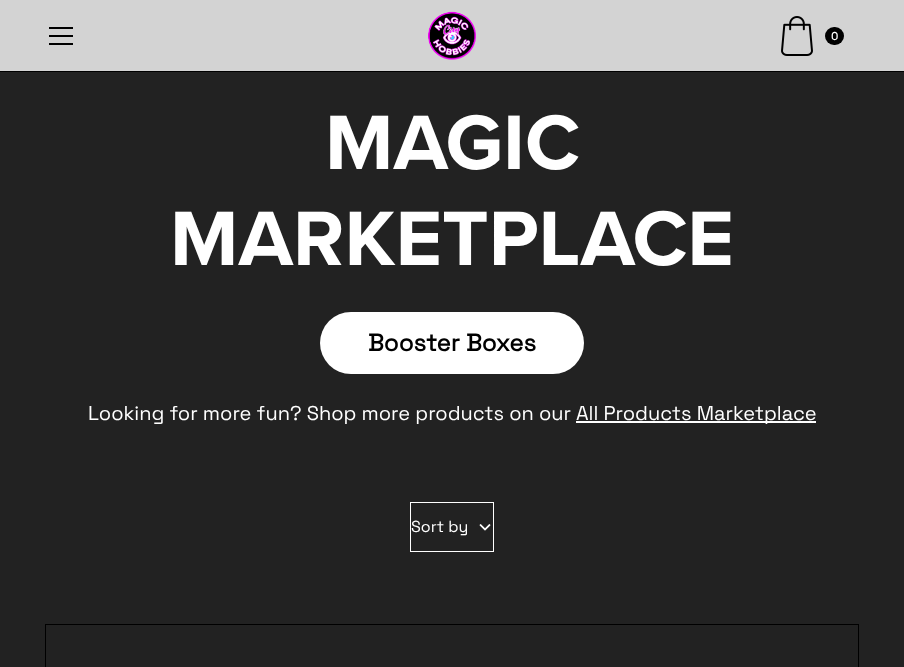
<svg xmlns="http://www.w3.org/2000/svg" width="904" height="667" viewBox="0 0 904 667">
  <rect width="100%" height="100%" fill="#222222"/>
  <rect x="0" y="0" width="904" height="71" fill="#d3d3d3"/>
  <rect x="0" y="71" width="904" height="1" fill="#000000"/>
  <rect x="49" y="27" width="24" height="2" fill="#000000"/>
  <rect x="49" y="35" width="24" height="2" fill="#000000"/>
  <rect x="49" y="43" width="24" height="2" fill="#000000"/>
  <image x="428" y="11" width="48" height="49" href="img1.png"/>
  <image x="781" y="16" width="32" height="40" href="img2.png"/>
  <rect x="825" y="27" width="19" height="18" rx="9" fill="#000000"/>
  <text x="831" y="40" font-family="Space Grotesk" font-size="11" font-weight="bold" fill="#ffffff">0</text>
  <text x="325" y="169" font-family="'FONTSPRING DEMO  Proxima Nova'" font-size="80" font-weight="bold" fill="#ffffff">MAGIC</text>
  <text x="170" y="265" font-family="'FONTSPRING DEMO  Proxima Nova'" font-size="80" font-weight="bold" fill="#ffffff">MARKETPLACE</text>
  <rect x="320" y="312" width="264" height="62" rx="31" fill="#ffffff"/>
  <text x="368" y="351" font-family="Space Grotesk" font-size="24" font-weight="bold" fill="#000000">Booster Boxes</text>
  <text x="88" y="420" font-family="Space Grotesk" font-size="20" font-weight="300" fill="#ffffff">Looking for more fun? Shop more products on our</text>
  <rect x="576" y="421" width="240" height="2" fill="#ffffff"/>
  <text x="576" y="420" font-family="Space Grotesk" font-size="20" font-weight="300" fill="#ffffff">All Products Marketplace</text>
  <rect x="410.5" y="502.5" width="83" height="49" fill="none" stroke="#ffffff"/>
  <text x="411" y="532" font-family="Space Grotesk" font-size="16" font-weight="300" fill="#ffffff">Sort by</text>
  <image x="479" y="524" width="12" height="7" href="img3.png"/>
  <rect x="45.5" y="624.5" width="813" height="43" fill="none" stroke="#000000"/>
</svg>
